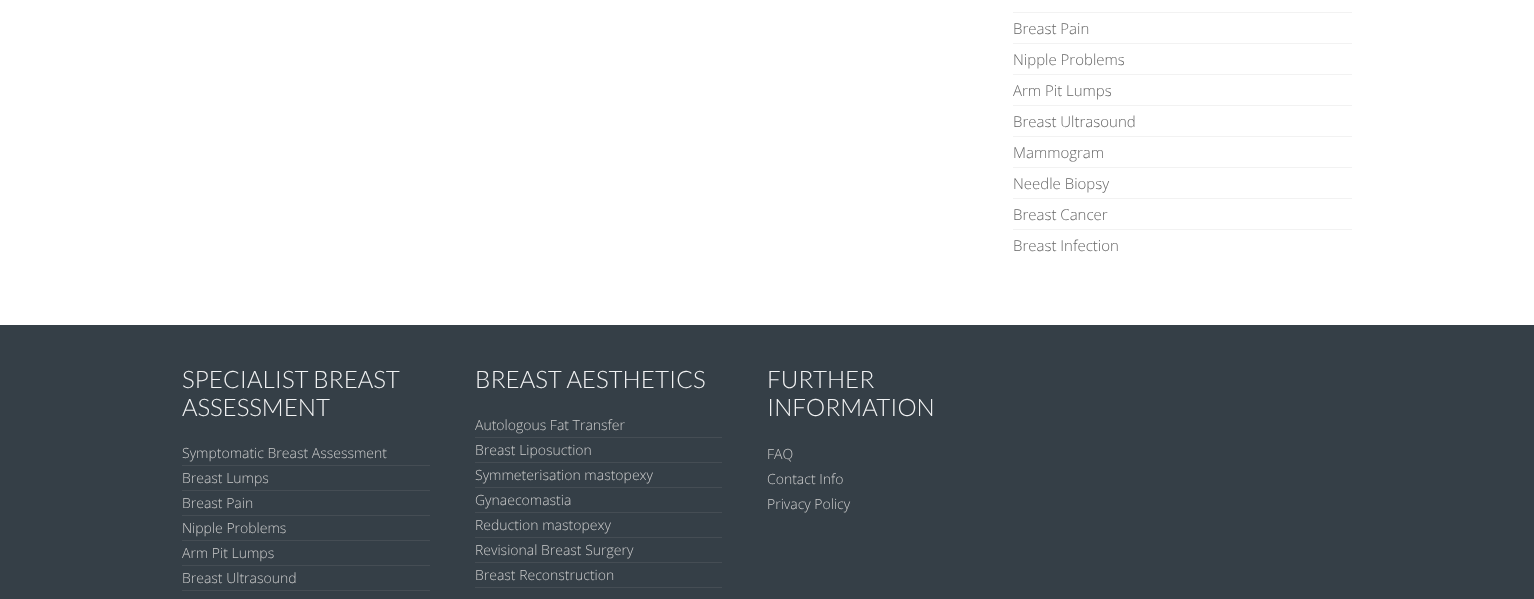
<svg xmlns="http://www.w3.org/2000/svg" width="1534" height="599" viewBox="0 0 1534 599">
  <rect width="100%" height="100%" fill="#ffffff"/>
  <rect x="1013" y="12" width="339" height="1" fill="#f2f2f2"/>
  <rect x="1013" y="43" width="339" height="1" fill="#f2f2f2"/>
  <text x="1013" y="34" font-family="Open Sans" font-size="15" font-weight="300" fill="#666666">Breast Pain</text>
  <rect x="1013" y="74" width="339" height="1" fill="#f2f2f2"/>
  <text x="1013" y="65" font-family="Open Sans" font-size="15" font-weight="300" fill="#666666">Nipple Problems</text>
  <rect x="1013" y="105" width="339" height="1" fill="#f2f2f2"/>
  <text x="1013" y="96" font-family="Open Sans" font-size="15" font-weight="300" fill="#666666">Arm Pit Lumps</text>
  <rect x="1013" y="136" width="339" height="1" fill="#f2f2f2"/>
  <text x="1013" y="127" font-family="Open Sans" font-size="15" font-weight="300" fill="#666666">Breast Ultrasound</text>
  <rect x="1013" y="167" width="339" height="1" fill="#f2f2f2"/>
  <text x="1013" y="158" font-family="Open Sans" font-size="15" font-weight="300" fill="#666666">Mammogram</text>
  <rect x="1013" y="198" width="339" height="1" fill="#f2f2f2"/>
  <text x="1013" y="189" font-family="Open Sans" font-size="15" font-weight="300" fill="#666666">Needle Biopsy</text>
  <rect x="1013" y="229" width="339" height="1" fill="#f2f2f2"/>
  <text x="1013" y="220" font-family="Open Sans" font-size="15" font-weight="300" fill="#666666">Breast Cancer</text>
  <text x="1013" y="251" font-family="Open Sans" font-size="15" font-weight="300" fill="#666666">Breast Infection</text>
  <rect x="0" y="325" width="1534" height="274" fill="#353f47"/>
  <text x="182" y="388" font-family="Lato" font-size="24" font-weight="300" fill="#f2f3f4">SPECIALIST BREAST</text>
  <text x="182" y="416" font-family="Lato" font-size="24" font-weight="300" fill="#f2f3f4">ASSESSMENT</text>
  <rect x="182" y="465" width="248" height="1" fill="#454d54"/>
  <text x="182" y="458" font-family="Open Sans" font-size="14" font-weight="300" fill="#cccccc">Symptomatic Breast Assessment</text>
  <rect x="182" y="490" width="248" height="1" fill="#454d54"/>
  <text x="182" y="483" font-family="Open Sans" font-size="14" font-weight="300" fill="#cccccc">Breast Lumps</text>
  <rect x="182" y="515" width="248" height="1" fill="#454d54"/>
  <text x="182" y="508" font-family="Open Sans" font-size="14" font-weight="300" fill="#cccccc">Breast Pain</text>
  <rect x="182" y="540" width="248" height="1" fill="#454d54"/>
  <text x="182" y="533" font-family="Open Sans" font-size="14" font-weight="300" fill="#cccccc">Nipple Problems</text>
  <rect x="182" y="565" width="248" height="1" fill="#454d54"/>
  <text x="182" y="558" font-family="Open Sans" font-size="14" font-weight="300" fill="#cccccc">Arm Pit Lumps</text>
  <rect x="182" y="590" width="248" height="1" fill="#454d54"/>
  <text x="182" y="583" font-family="Open Sans" font-size="14" font-weight="300" fill="#cccccc">Breast Ultrasound</text>
  <text x="475" y="388" font-family="Lato" font-size="24" font-weight="300" fill="#f2f3f4">BREAST AESTHETICS</text>
  <rect x="475" y="437" width="247" height="1" fill="#454d54"/>
  <text x="475" y="430" font-family="Open Sans" font-size="14" font-weight="300" fill="#cccccc">Autologous Fat Transfer</text>
  <rect x="475" y="462" width="247" height="1" fill="#454d54"/>
  <text x="475" y="455" font-family="Open Sans" font-size="14" font-weight="300" fill="#cccccc">Breast Liposuction</text>
  <rect x="475" y="487" width="247" height="1" fill="#454d54"/>
  <text x="475" y="480" font-family="Open Sans" font-size="14" font-weight="300" fill="#cccccc">Symmeterisation mastopexy</text>
  <rect x="475" y="512" width="247" height="1" fill="#454d54"/>
  <text x="475" y="505" font-family="Open Sans" font-size="14" font-weight="300" fill="#cccccc">Gynaecomastia</text>
  <rect x="475" y="537" width="247" height="1" fill="#454d54"/>
  <text x="475" y="530" font-family="Open Sans" font-size="14" font-weight="300" fill="#cccccc">Reduction mastopexy</text>
  <rect x="475" y="562" width="247" height="1" fill="#454d54"/>
  <text x="475" y="555" font-family="Open Sans" font-size="14" font-weight="300" fill="#cccccc">Revisional Breast Surgery</text>
  <rect x="475" y="587" width="247" height="1" fill="#454d54"/>
  <text x="475" y="580" font-family="Open Sans" font-size="14" font-weight="300" fill="#cccccc">Breast Reconstruction</text>
  <text x="767" y="388" font-family="Lato" font-size="24" font-weight="300" fill="#f2f3f4">FURTHER</text>
  <text x="767" y="416" font-family="Lato" font-size="24" font-weight="300" fill="#f2f3f4">INFORMATION</text>
  <text x="767" y="459" font-family="Open Sans" font-size="14" font-weight="300" fill="#cccccc">FAQ</text>
  <text x="767" y="484" font-family="Open Sans" font-size="14" font-weight="300" fill="#cccccc">Contact Info</text>
  <text x="767" y="509" font-family="Open Sans" font-size="14" font-weight="300" fill="#cccccc">Privacy Policy</text>
</svg>
